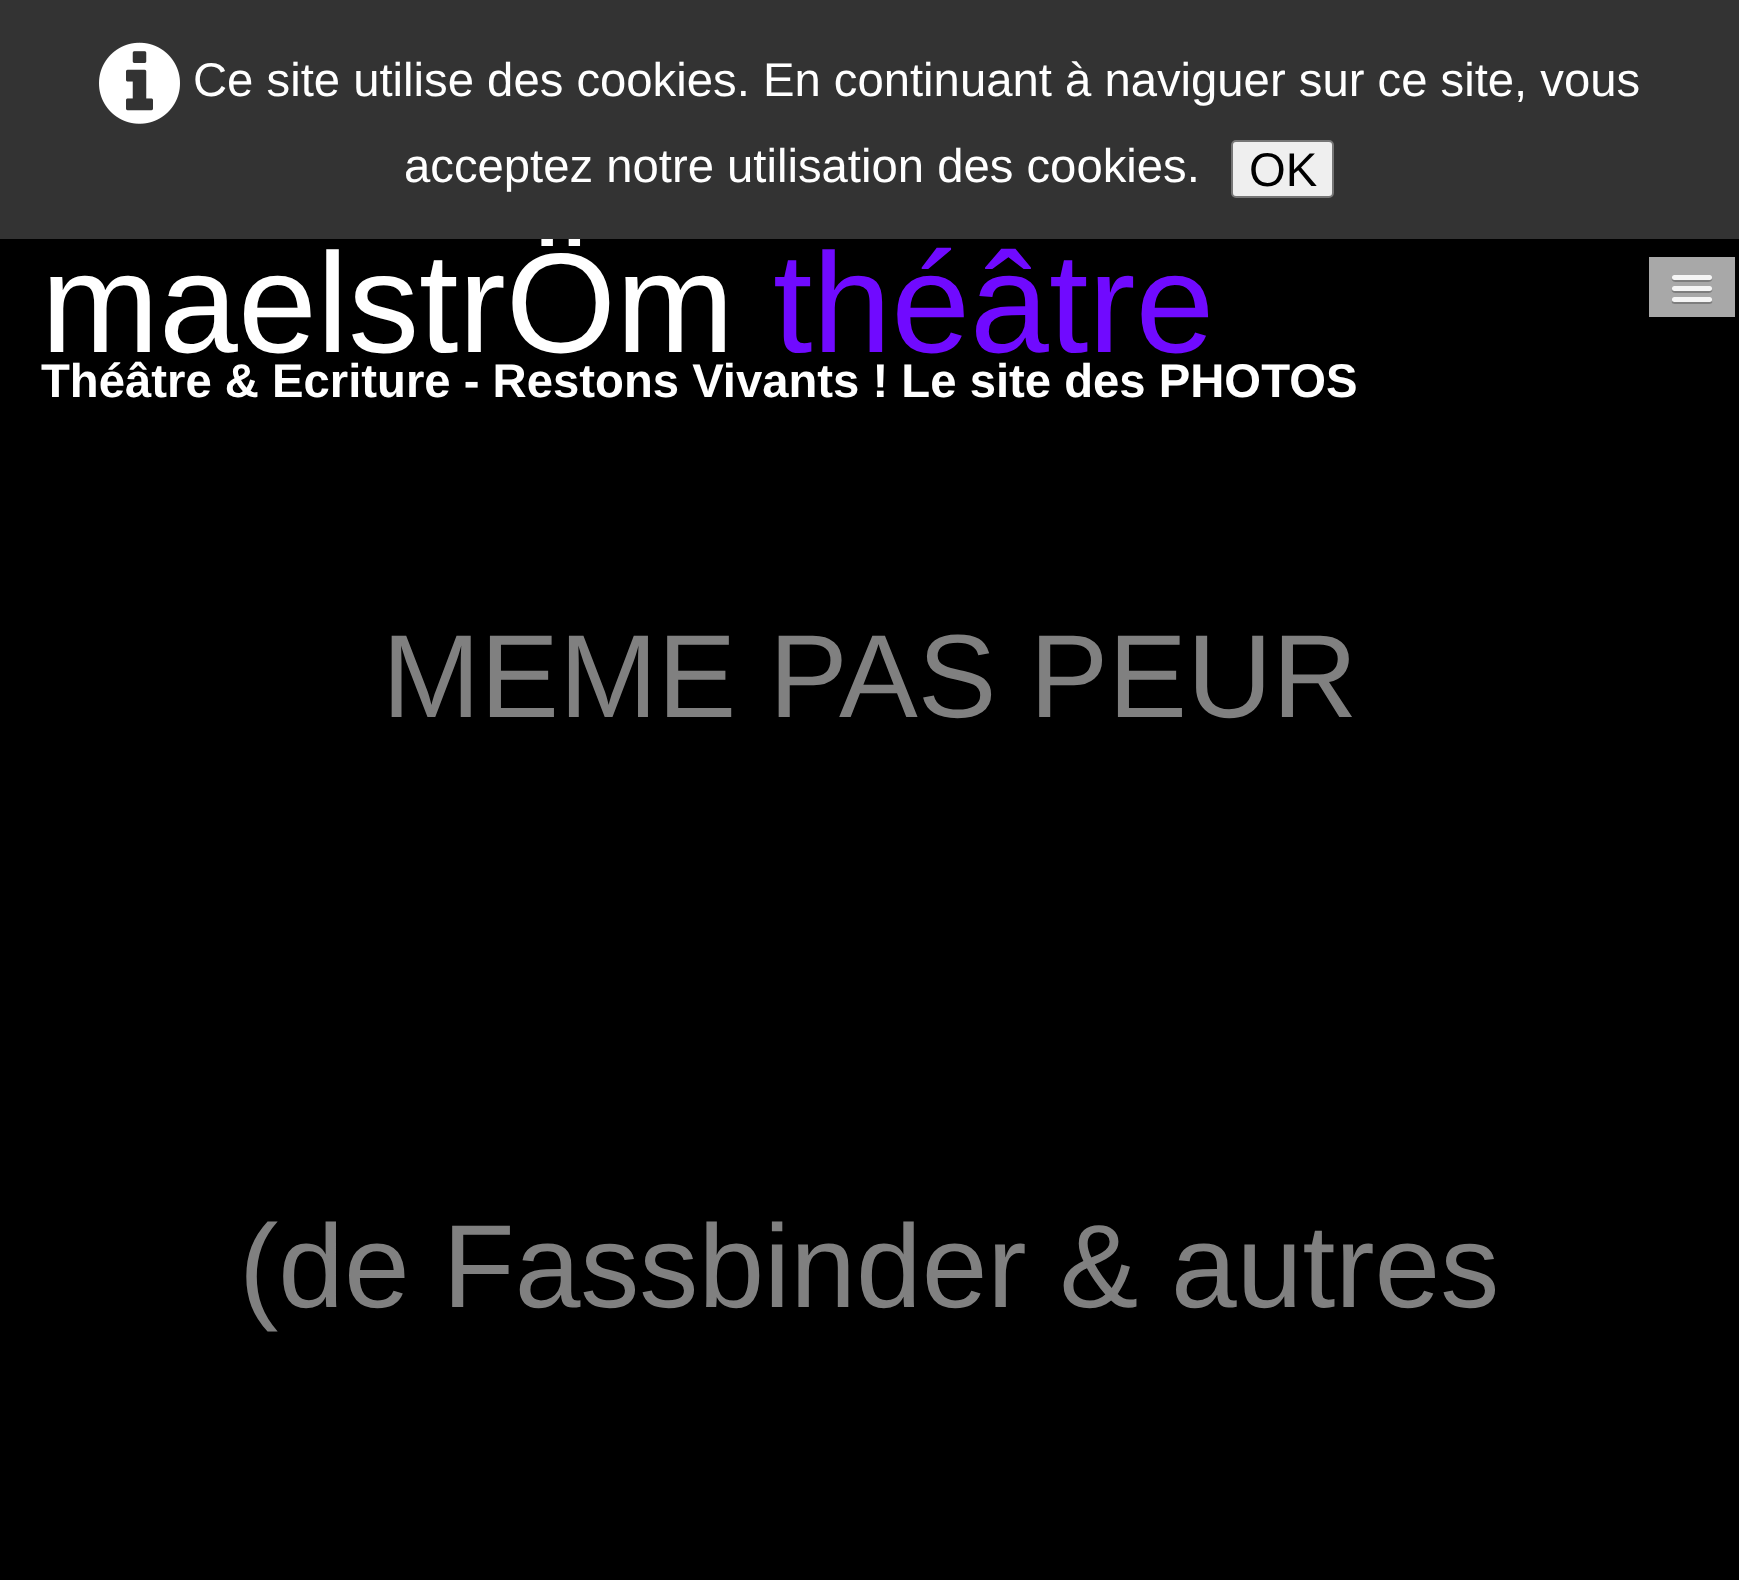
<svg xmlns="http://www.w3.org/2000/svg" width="1739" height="1580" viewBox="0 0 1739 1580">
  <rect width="100%" height="100%" fill="#000000"/>
  <text x="41" y="352" font-family="Liberation Sans" font-size="141.75" fill="#ffffff">maelstrÖm</text>
  <rect x="0" y="0" width="1739" height="239" fill="#333333"/>
  <image x="99" y="42" width="81" height="82" href="img1.png"/>
  <text x="193" y="96" font-family="Liberation Sans" font-size="47.25" fill="#ffffff">Ce site utilise des cookies. En continuant à naviguer sur ce site, vous</text>
  <text x="404" y="182" font-family="Liberation Sans" font-size="47.25" fill="#ffffff">acceptez notre utilisation des cookies.</text>
  <rect x="1232" y="141" width="101" height="56" rx="4" fill="#efefef" stroke="#767676" stroke-width="2"/>
  <text x="1249" y="186" font-family="Liberation Sans" font-size="47.25" fill="#000000">OK</text>
  <text x="773" y="352" font-family="Liberation Sans" font-size="141.75" fill="#700aff">théâtre</text>
  <text x="41" y="397" font-family="Liberation Sans" font-size="47.25" font-weight="bold" fill="#ffffff">Théâtre &amp; Ecriture - Restons Vivants ! Le site des PHOTOS</text>
  <rect x="1649" y="257" width="86" height="60" fill="#a8a8a8"/>
  <path d="M1672 278C1670 283 1680 282 1680 282H1704C1704 282 1714 283 1712 278C1710 280 1674 280 1672 278Z" fill="#7e7e7e"/>
  <rect x="1672" y="275" width="40" height="5" rx="2.5" fill="#f5f5f5"/>
  <path d="M1672 289C1670 294 1679 293 1680 293H1704C1705 293 1714 294 1712 289L1710 290H1674Z" fill="#7e7e7e"/>
  <rect x="1672" y="286" width="40" height="5" rx="2.5" fill="#f5f5f5"/>
  <path d="M1672 301C1670 305 1679 304 1680 304H1704C1705 304 1714 305 1712 301H1710H1674Z" fill="#7e7e7e"/>
  <rect x="1672" y="297" width="40" height="5" rx="2.5" fill="#f5f5f5"/>
  <text x="382" y="717" font-family="Liberation Sans" font-size="118.1" fill="#808080">MEME PAS PEUR</text>
  <text x="239" y="1307" font-family="Liberation Sans" font-size="118.1" fill="#808080">(de Fassbinder &amp; autres</text>
</svg>
